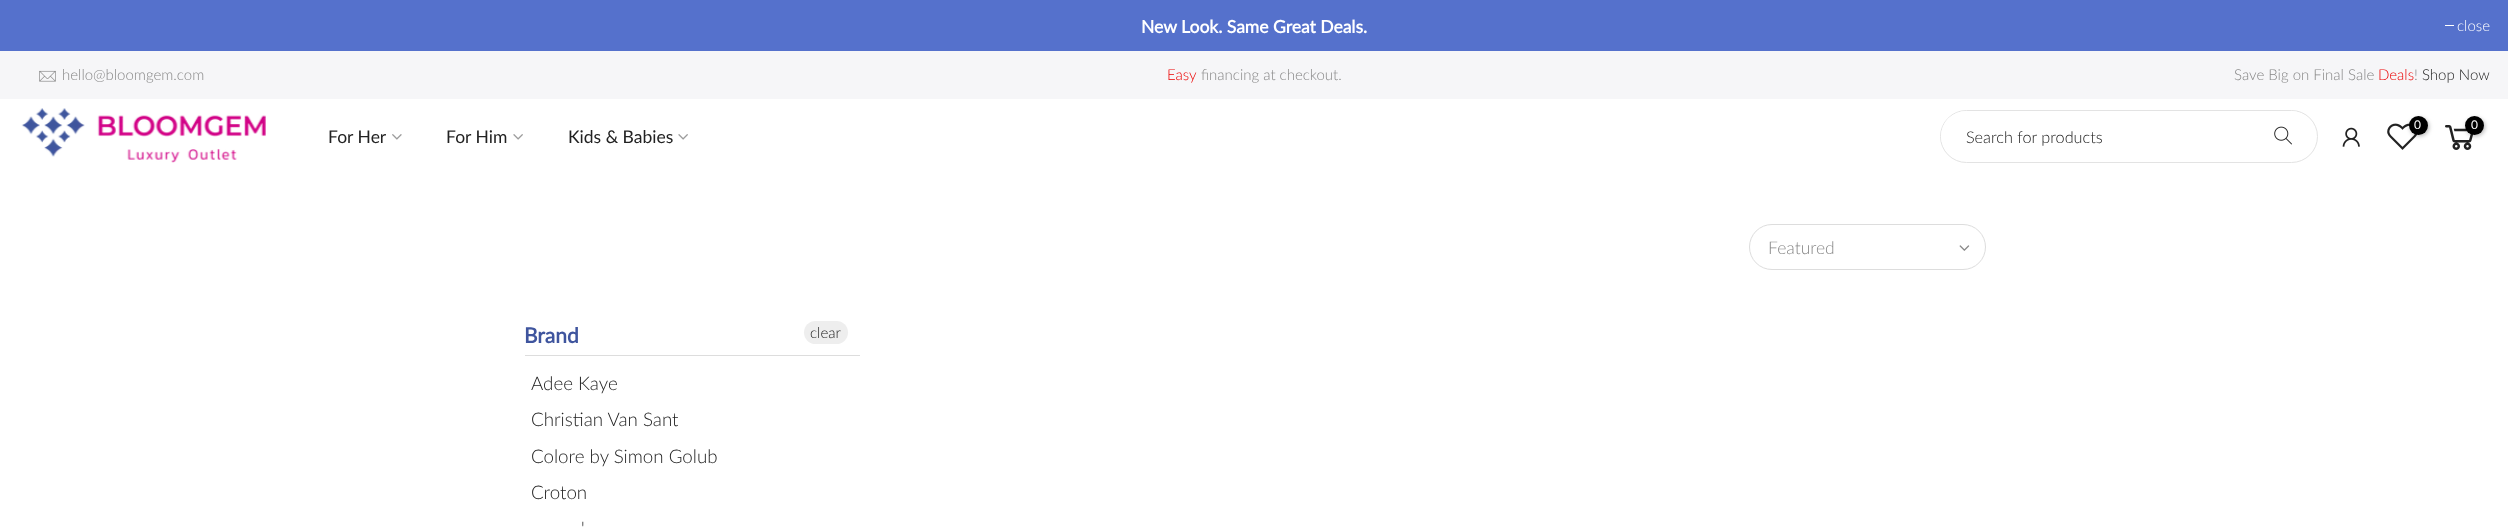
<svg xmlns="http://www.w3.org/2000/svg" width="2508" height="529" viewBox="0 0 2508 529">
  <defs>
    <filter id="blur1" x="-50%" y="-200%" width="200%" height="500%"><feGaussianBlur stdDeviation="2"/></filter>
  </defs>
  <rect width="100%" height="100%" fill="#ffffff"/>
  <rect x="0" y="0" width="2508" height="51" fill="#5571cc"/>
  <text x="1141" y="33" font-family="Lato" font-size="17.5" font-weight="bold" fill="#ffffff">New Look. Same Great Deals.</text>
  <rect x="2445" y="25" width="9" height="1" fill="#ffffff"/>
  <text x="2457" y="31" font-family="Lato" font-size="15" font-weight="300" fill="#ffffff">close</text>
  <rect x="0" y="51" width="2508" height="48" fill="#f6f6f8"/>
  <image x="39" y="70" width="17" height="12" href="img1.png"/>
  <text x="62" y="80" font-family="Lato" font-size="15" font-weight="300" fill="#878787">hello@bloomgem.com</text>
  <text x="1167" y="80" font-family="Lato" font-size="15" font-weight="300" fill="#ec0101">Easy</text>
  <text x="1201" y="80" font-family="Lato" font-size="15" font-weight="300" fill="#878787">financing at checkout.</text>
  <text x="2234" y="80" font-family="Lato" font-size="15" font-weight="300" fill="#878787">Save Big on Final Sale</text>
  <text x="2378" y="80" font-family="Lato" font-size="15" font-weight="300" fill="#ec0101">Deals</text>
  <text x="2414" y="80" font-family="Lato" font-size="15" font-weight="300" fill="#878787">!</text>
  <text x="2422" y="80" font-family="Lato" font-size="15" font-weight="300" fill="#222222">Shop Now</text>
  <image x="21" y="108" width="245" height="55" href="img2.png"/>
  <text x="328" y="143" font-family="Lato" font-size="17.5" fill="#222222">For Her</text>
  <image x="392" y="134" width="10" height="6" href="img3.png"/>
  <text x="446" y="143" font-family="Lato" font-size="17.5" fill="#222222">For Him</text>
  <image x="513" y="134" width="10" height="6" href="img4.png"/>
  <text x="568" y="143" font-family="Lato" font-size="17.5" fill="#222222">Kids &amp; Babies</text>
  <image x="678" y="134" width="10" height="6" href="img4.png"/>
  <image x="2387" y="123" width="31" height="27" href="img5.png"/>
  <rect x="2410" y="118" width="19" height="18" rx="9" fill="#000000" fill-opacity="0.3" filter="url(#blur1)"/>
  <circle cx="2418.5" cy="125.5" r="9.5" fill="#000000"/>
  <text x="2414" y="129" font-family="Lato" font-size="12" fill="#ffffff">0</text>
  <image x="2445" y="125" width="29" height="25" href="img6.png"/>
  <rect x="2466" y="118" width="19" height="18" rx="9" fill="#000000" fill-opacity="0.3" filter="url(#blur1)"/>
  <circle cx="2474.5" cy="125.5" r="9.5" fill="#000000"/>
  <text x="2471" y="129" font-family="Lato" font-size="12" fill="#ffffff">0</text>
  <rect x="1940.5" y="110.5" width="377" height="52" rx="26" fill="none" stroke="#e3e3e3"/>
  <rect x="1941" y="111" width="375" height="50" rx="25" fill="#ffffff"/>
  <text x="1966" y="143" font-family="Lato" font-size="16.25" font-weight="300" fill="#222222">Search for products</text>
  <image x="2274" y="126" width="18" height="19" href="img7.png"/>
  <image x="2342" y="127" width="18" height="20" href="img8.png"/>
  <rect x="1749.5" y="224.5" width="236" height="45" rx="22.5" fill="none" stroke="#dddddd"/>
  <text x="1768" y="254" font-family="Lato" font-size="17.5" font-weight="300" fill="#878787">Featured</text>
  <image x="1959" y="245" width="11" height="6" href="img9.png"/>
  <rect x="525" y="355" width="335" height="1" fill="#dddddd"/>
  <text x="524" y="343" font-family="Lato" font-size="21" font-weight="bold" fill="#3f559e">Brand</text>
  <rect x="804" y="321" width="44" height="23" rx="11.5" fill="#eeeeee"/>
  <text x="810" y="338" font-family="Lato" font-size="15" font-weight="300" fill="#222222">clear</text>
  <text x="531" y="390" font-family="Lato" font-size="18.75" font-weight="300" fill="#222222">Adee Kaye</text>
  <text x="531" y="426" font-family="Lato" font-size="18.75" font-weight="300" fill="#222222">Christian Van Sant</text>
  <text x="531" y="463" font-family="Lato" font-size="18.75" font-weight="300" fill="#222222">Colore by Simon Golub</text>
  <text x="531" y="499" font-family="Lato" font-size="18.75" font-weight="300" fill="#222222">Croton</text>
  <text x="581" y="535" font-family="Lato" font-size="18.75" font-weight="300" fill="#222222">'</text>
</svg>
